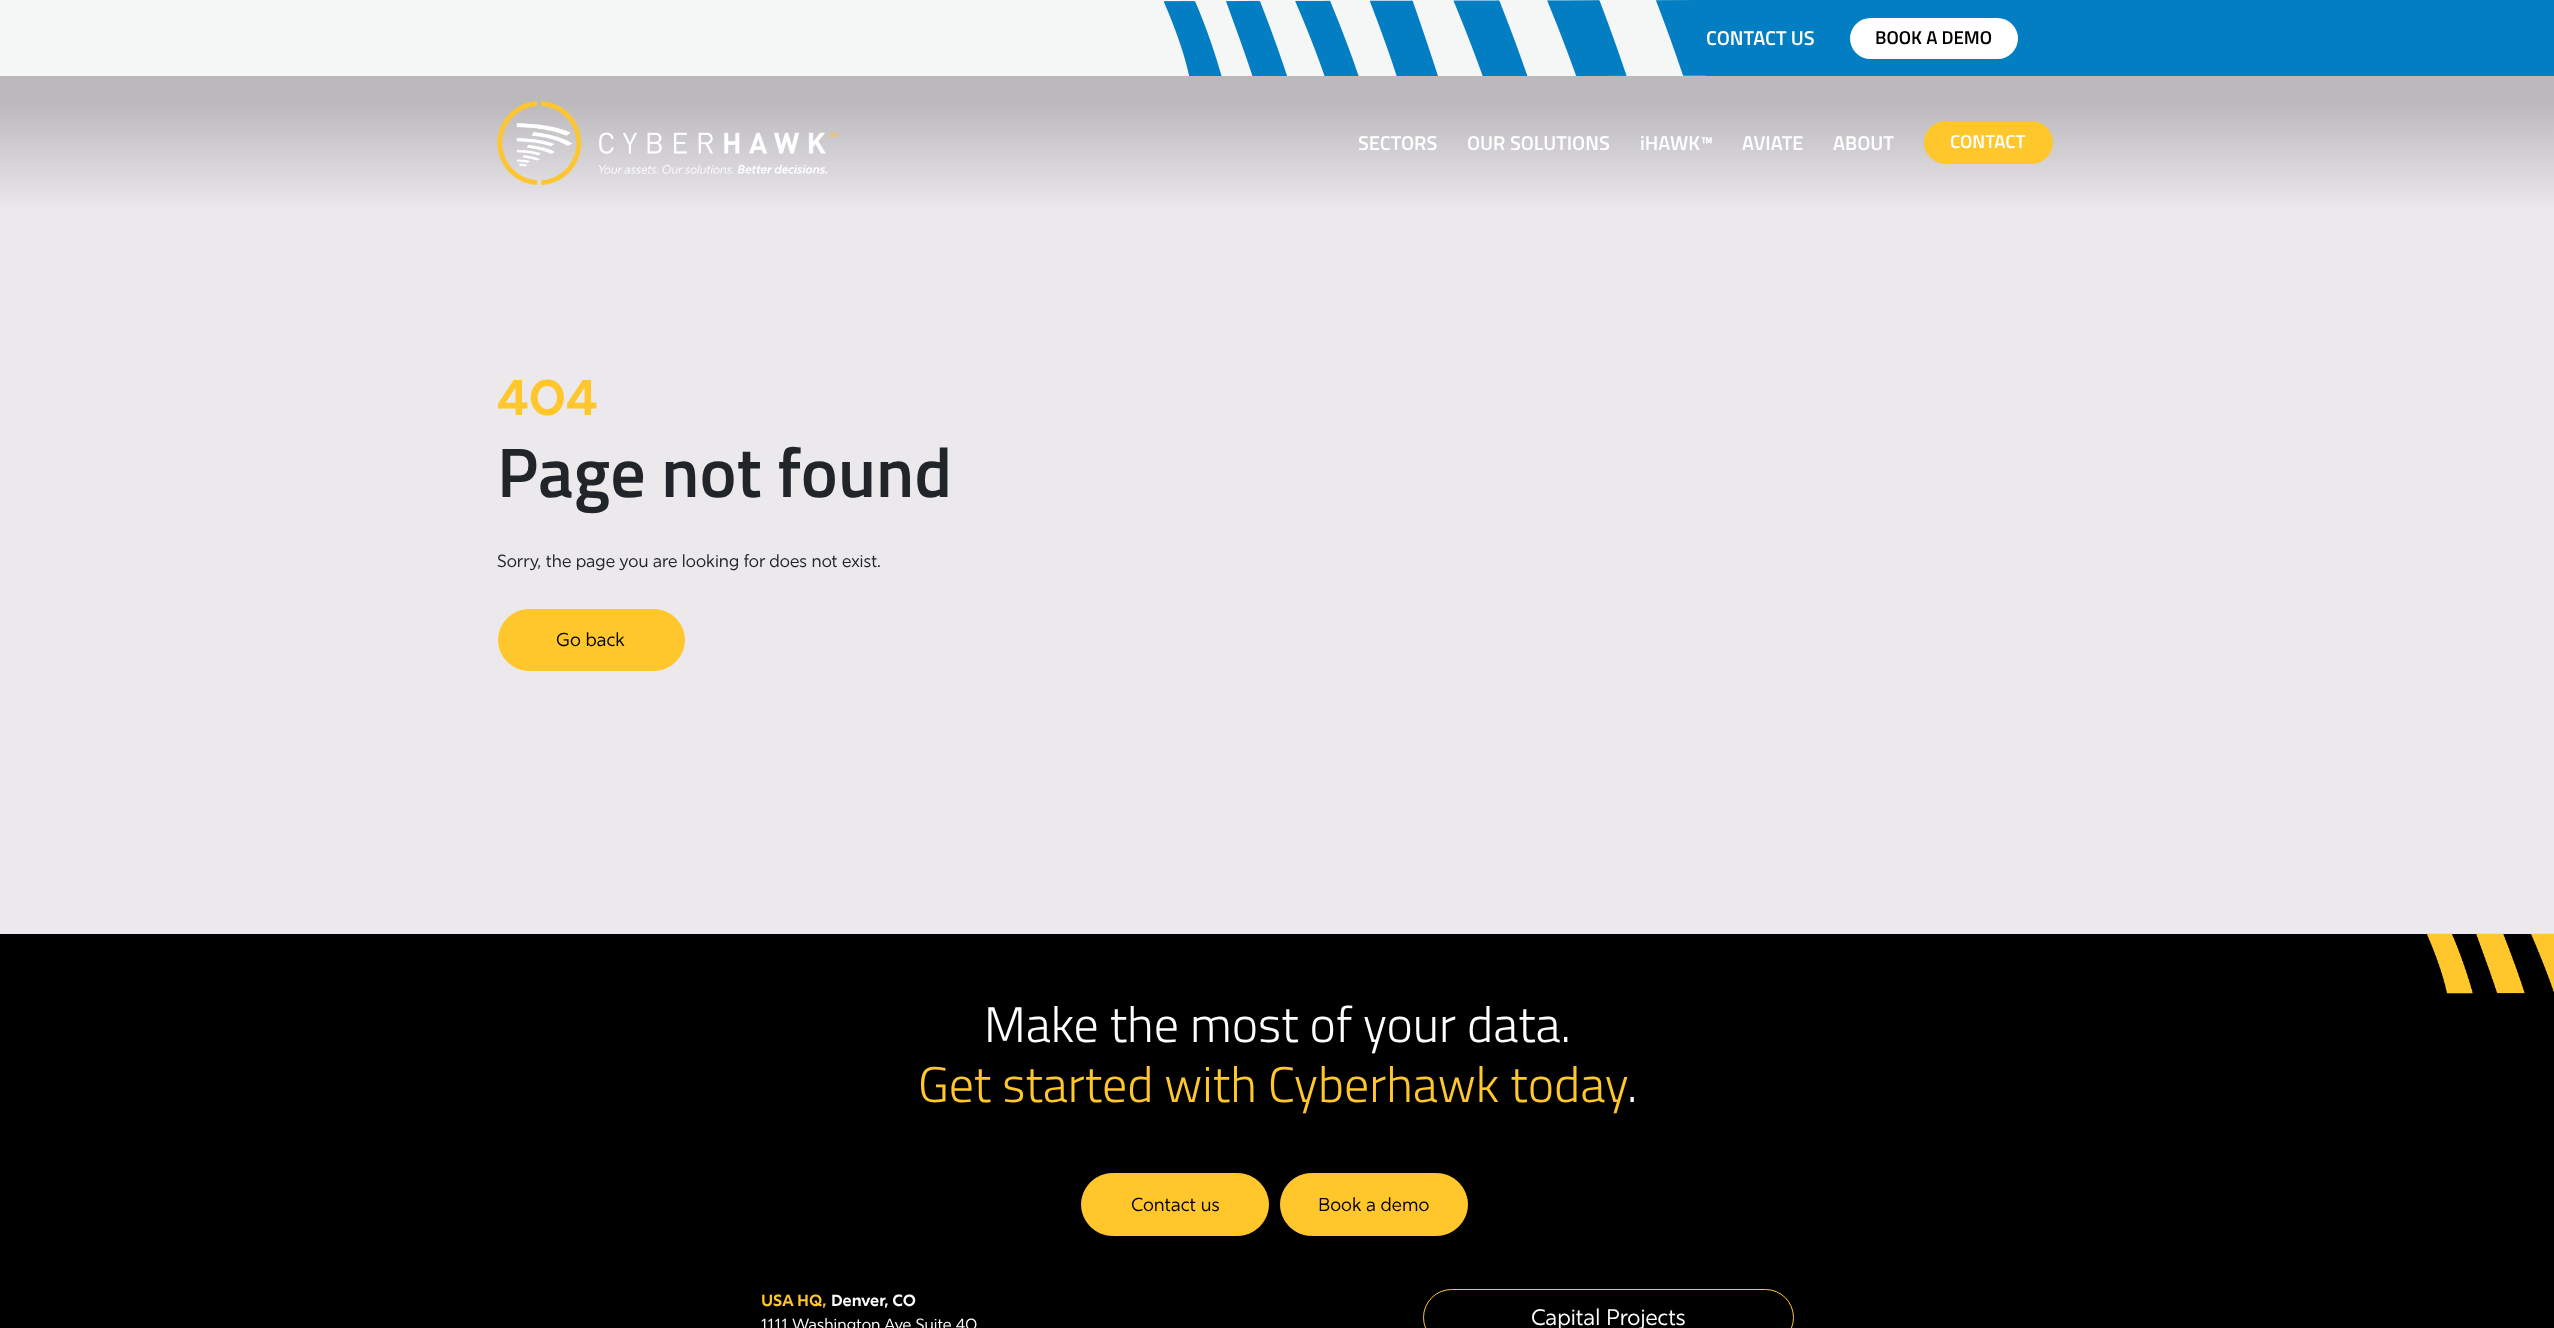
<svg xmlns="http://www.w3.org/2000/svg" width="2554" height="1328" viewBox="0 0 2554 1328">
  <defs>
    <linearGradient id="g1" gradientUnits="userSpaceOnUse" x1="1278" y1="210" x2="1278" y2="76"><stop offset="0" stop-color="#ebe8ed"/><stop offset="0.8" stop-color="#bbb9bc"/></linearGradient>
  </defs>
  <rect width="100%" height="100%" fill="#ebe9ec"/>
  <rect x="0" y="0" width="1706" height="76" fill="#f5f6f6"/>
  <rect x="1706" y="0" width="848" height="76" fill="#047ec2"/>
  <image x="1164" y="0" width="542" height="76" href="img1.png"/>
  <text x="1706" y="45" font-family="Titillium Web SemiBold" font-size="20" font-weight="600" fill="#ffffff">CONTACT US</text>
  <rect x="1850" y="18" width="168" height="41" rx="20.5" fill="#ffffff"/>
  <text x="1875" y="44" font-family="Titillium Web SemiBold" font-size="18.75" font-weight="600" fill="#000000">BOOK A DEMO</text>
  <rect x="0" y="76" width="2554" height="131" fill="url(#g1)"/>
  <image x="497" y="101" width="341" height="84" href="img2.png"/>
  <text x="1358" y="150" font-family="Titillium Web SemiBold" font-size="20" font-weight="600" fill="#ffffff">SECTORS</text>
  <text x="1467" y="150" font-family="Titillium Web SemiBold" font-size="20" font-weight="600" fill="#ffffff">OUR SOLUTIONS</text>
  <text x="1640" y="150" font-family="Titillium Web SemiBold" font-size="20" font-weight="600" fill="#ffffff">iHAWK™</text>
  <text x="1742" y="150" font-family="Titillium Web SemiBold" font-size="20" font-weight="600" fill="#ffffff">AVIATE</text>
  <text x="1833" y="150" font-family="Titillium Web SemiBold" font-size="20" font-weight="600" fill="#ffffff">ABOUT</text>
  <rect x="1924.5" y="121.5" width="128" height="42" rx="21" fill="#ffc72c" stroke="#ffc72c"/>
  <text x="1950" y="148" font-family="Titillium Web SemiBold" font-size="18.75" font-weight="600" fill="#ffffff">CONTACT</text>
  <text x="497" y="415" font-family="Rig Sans" font-size="50" font-weight="bold" fill="#ffc72c">404</text>
  <text x="497" y="497" font-family="Titillium Web SemiBold" font-size="70" font-weight="600" fill="#212529">Page not found</text>
  <text x="497" y="567" font-family="Rig Sans" font-size="17.5" fill="#212529">Sorry, the page you are looking for does not exist.</text>
  <rect x="498.5" y="609.5" width="186" height="61" rx="30.5" fill="#ffc72c" stroke="#ffc72c"/>
  <text x="556" y="646" font-family="Rig Sans" font-size="18.75" fill="#000000">Go back</text>
  <rect x="0" y="934" width="2554" height="394" fill="#000000"/>
  <image x="2427" y="933" width="127" height="61" href="img3.png"/>
  <text x="984" y="1042" font-family="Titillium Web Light" font-size="50" font-weight="300" fill="#ffffff">Make the most of your data.</text>
  <text x="918" y="1102" font-family="Titillium Web Light" font-size="50" font-weight="300" fill="#ffc72c">Get started with Cyberhawk today</text>
  <text x="1627" y="1102" font-family="Titillium Web Light" font-size="50" font-weight="300" fill="#ffffff">.</text>
  <rect x="1081.5" y="1173.5" width="187" height="62" rx="31" fill="#ffc72c" stroke="#ffc72c"/>
  <text x="1131" y="1211" font-family="Rig Sans" font-size="18.75" fill="#000000">Contact us</text>
  <rect x="1280.5" y="1173.5" width="187" height="62" rx="31" fill="#ffc72c" stroke="#ffc72c"/>
  <text x="1318" y="1211" font-family="Rig Sans" font-size="18.75" fill="#000000">Book a demo</text>
  <text x="761" y="1306" font-family="Rig Sans" font-size="16.25" font-weight="bold" fill="#ffc72c">USA HQ,</text>
  <text x="831" y="1306" font-family="Rig Sans" font-size="16.25" font-weight="bold" fill="#ffffff">Denver, CO</text>
  <text x="761" y="1330" font-family="Rig Sans" font-size="16.25" fill="#ffffff">1111 Washington Ave Suite 40</text>
  <rect x="1423.5" y="1289.5" width="370" height="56" rx="28" fill="none" stroke="#ffc72c"/>
  <text x="1531" y="1325" font-family="Rig Sans" font-size="22.5" fill="#ffffff">Capital Projects</text>
</svg>
